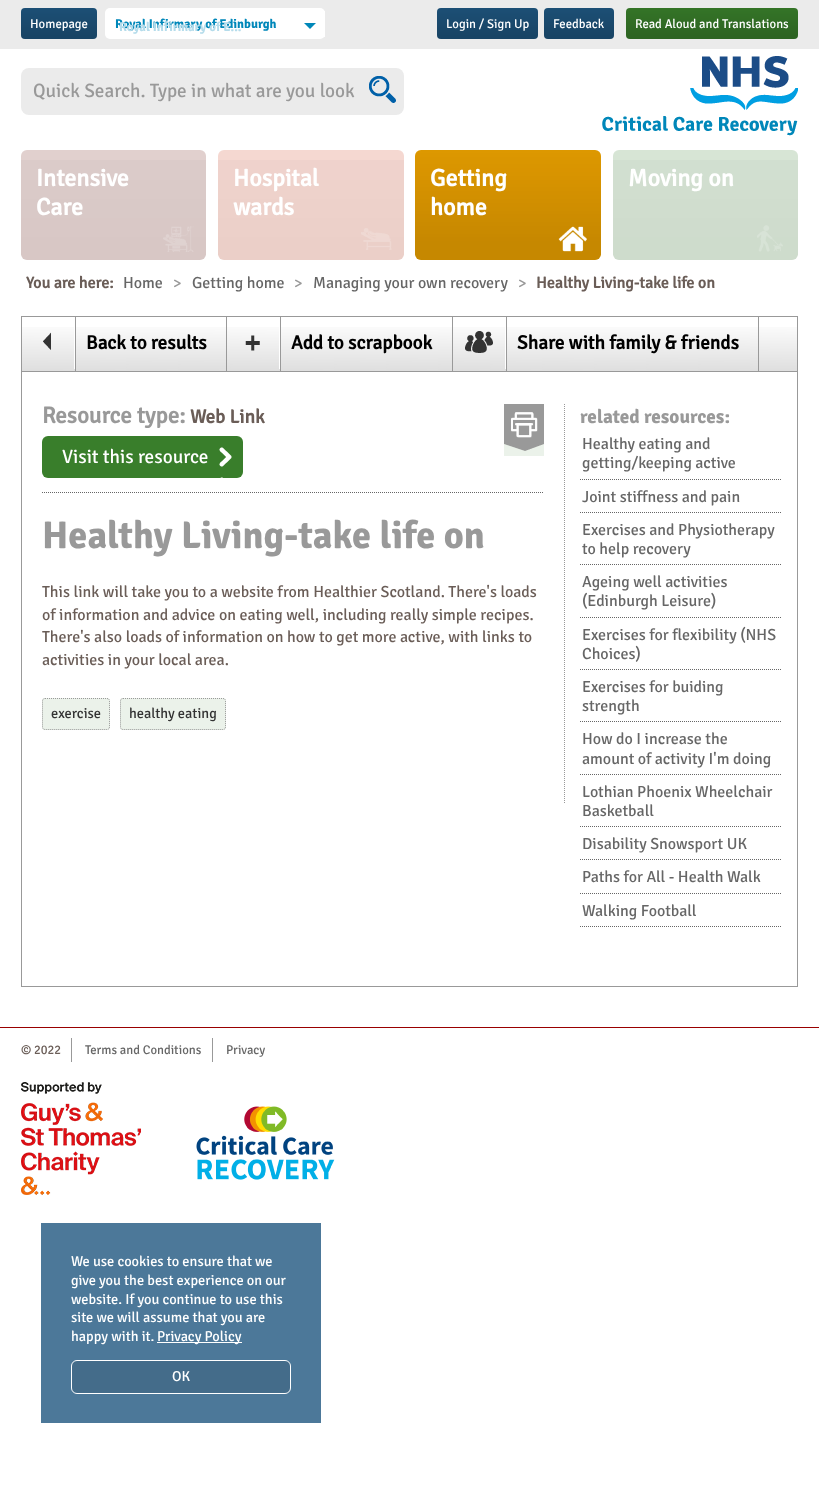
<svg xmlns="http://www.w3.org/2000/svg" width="819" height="1498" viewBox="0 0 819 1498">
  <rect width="100%" height="100%" fill="#ffffff"/>
  <rect x="0" y="0" width="819" height="49" fill="#ebebeb"/>
  <rect x="21" y="8" width="76" height="31" rx="4" fill="#1f567f"/>
  <image x="21" y="8" width="76" height="31" href="img1.png"/>
  <text x="30" y="28" font-family="Signika" font-size="12.75" fill="#ffffff">Homepage</text>
  <rect x="105" y="8" width="220" height="31" rx="5" fill="#ffffff"/>
  <rect x="324" y="11" width="1" height="26" fill="#ffffff"/>
  <text x="115" y="28" font-family="'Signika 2'" font-size="12.75" font-weight="bold" fill="#0087b9">Royal Infirmary of Edinburgh</text>
  <path d="M304 23H316L310 29Z" fill="#0087b9"/>
  <text x="119" y="31" font-family="'Signika 2'" font-size="12.75" font-weight="bold" fill="#b5dceb">Royal Infirmary of E...</text>
  <rect x="437" y="8" width="101" height="31" rx="4" fill="#1f567f"/>
  <image x="437" y="8" width="101" height="31" href="img2.png"/>
  <text x="446" y="28" font-family="Signika" font-size="12.75" fill="#ffffff">Login / Sign Up</text>
  <rect x="544" y="8" width="70" height="31" rx="4" fill="#1f567f"/>
  <image x="544" y="8" width="70" height="31" href="img3.png"/>
  <text x="553" y="28" font-family="Signika" font-size="12.75" fill="#ffffff">Feedback</text>
  <rect x="626" y="8" width="172" height="31" rx="4" fill="#397e2b"/>
  <image x="626" y="8" width="172" height="31" href="img4.png"/>
  <text x="635" y="28" font-family="Signika" font-size="12.75" fill="#ffffff">Read Aloud and Translations</text>
  <rect x="21" y="68" width="383" height="47" rx="8" fill="#ebebeb"/>
  <text x="33" y="97" font-family="Signika" font-size="19.25" fill="#999999">Quick Search. Type in what are you look</text>
  <image x="369" y="76" width="27" height="27" href="img5.png"/>
  <image x="602" y="56" width="196" height="80" href="img6.png"/>
  <rect x="21" y="150" width="185" height="110" rx="6" fill="#e1d0ce"/>
  <image x="21" y="160" width="185" height="100" href="img7.png"/>
  <text x="36" y="186" font-family="Signika" font-size="24" font-weight="bold" fill="#ffffff">Intensive</text>
  <text x="36" y="215" font-family="Signika" font-size="24" font-weight="bold" fill="#ffffff">Care</text>
  <image x="163" y="226" width="31" height="26" href="img8.png"/>
  <rect x="218" y="150" width="186" height="110" rx="6" fill="#f5d8d1"/>
  <image x="218" y="160" width="186" height="100" href="img9.png"/>
  <text x="233" y="186" font-family="Signika" font-size="24" font-weight="bold" fill="#ffffff">Hospital</text>
  <text x="233" y="215" font-family="Signika" font-size="24" font-weight="bold" fill="#ffffff">wards</text>
  <image x="361" y="228" width="31" height="22" href="img10.png"/>
  <rect x="415" y="150" width="186" height="110" rx="6" fill="#f8aa00"/>
  <image x="415" y="150" width="186" height="110" href="img11.png"/>
  <text x="430" y="186" font-family="Signika" font-size="24" font-weight="bold" fill="#ffffff">Getting</text>
  <text x="430" y="215" font-family="Signika" font-size="24" font-weight="bold" fill="#ffffff">home</text>
  <image x="558" y="226" width="29" height="26" href="img12.png"/>
  <rect x="613" y="150" width="185" height="110" rx="6" fill="#d7e5d5"/>
  <image x="613" y="160" width="185" height="100" href="img13.png"/>
  <text x="628" y="186" font-family="Signika" font-size="24" font-weight="bold" fill="#ffffff">Moving on</text>
  <image x="757" y="225" width="26" height="27" href="img14.png"/>
  <text x="26" y="288" font-family="Signika" font-size="16" font-weight="bold" fill="#6a5d57">You are here:</text>
  <text x="123" y="288" font-family="Signika" font-size="16" fill="#666666">Home</text>
  <text x="173" y="288" font-family="Signika" font-size="16" fill="#999999">&gt;</text>
  <text x="192" y="288" font-family="Signika" font-size="16" fill="#666666">Getting home</text>
  <text x="294" y="288" font-family="Signika" font-size="16" fill="#999999">&gt;</text>
  <text x="313" y="288" font-family="Signika" font-size="16" fill="#666666">Managing your own recovery</text>
  <text x="518" y="288" font-family="Signika" font-size="16" fill="#999999">&gt;</text>
  <text x="536" y="288" font-family="Signika" font-size="16" font-weight="bold" fill="#6a5d57">Healthy Living-take life on</text>
  <rect x="21.5" y="316.5" width="776" height="670" fill="none" stroke="#999999"/>
  <image x="22" y="327" width="775" height="44" href="img15.png"/>
  <rect x="22" y="371" width="775" height="1" fill="#999999"/>
  <rect x="74" y="327" width="1" height="42" fill="#ffffff"/>
  <image x="43" y="332" width="8" height="18" href="img16.png"/>
  <rect x="226" y="317" width="1" height="54" fill="#999999"/>
  <rect x="75" y="317" width="1" height="54" fill="#999999"/>
  <text x="86" y="349" font-family="Signika" font-size="19.25" font-weight="bold" fill="#000000">Back to results</text>
  <rect x="279" y="327" width="1" height="42" fill="#ffffff"/>
  <image x="245" y="335" width="15" height="16" href="img17.png"/>
  <rect x="452" y="317" width="1" height="54" fill="#999999"/>
  <rect x="280" y="317" width="1" height="54" fill="#999999"/>
  <text x="291" y="349" font-family="Signika" font-size="19.25" font-weight="bold" fill="#000000">Add to scrapbook</text>
  <rect x="505" y="327" width="1" height="42" fill="#ffffff"/>
  <image x="465" y="331" width="28" height="22" href="img18.png"/>
  <rect x="758" y="317" width="1" height="54" fill="#999999"/>
  <rect x="506" y="317" width="1" height="54" fill="#999999"/>
  <text x="517" y="349" font-family="Signika" font-size="19.25" font-weight="bold" fill="#000000">Share with family &amp; friends</text>
  <path d="M564.5 404V804" fill="none" stroke="#999999" stroke-dasharray="1 1"/>
  <path d="M42 492.5H544" fill="none" stroke="#666666" stroke-dasharray="1 1"/>
  <text x="42" y="423" font-family="Signika" font-size="23" font-weight="bold" fill="#999999">Resource type:</text>
  <text x="190" y="423" font-family="Signika" font-size="19.25" font-weight="bold" fill="#6a5d57">Web Link</text>
  <rect x="42" y="436" width="201" height="42" rx="6" fill="#397e2b"/>
  <text x="62" y="463" font-family="Signika" font-size="19.25" fill="#ffffff">Visit this resource</text>
  <image x="219" y="447" width="13" height="31" href="img19.png"/>
  <rect x="504" y="444" width="40" height="12" fill="#ebf2ea"/>
  <image x="504" y="404" width="40" height="47" href="img20.png"/>
  <text x="42" y="548" font-family="'Signika 2'" font-size="38.4" font-weight="bold" fill="#999999">Healthy Living-take life on</text>
  <text x="42" y="597" font-family="Signika" font-size="16" fill="#6a5d57">This link will take you to a website from Healthier Scotland. There's loads</text>
  <text x="42" y="620" font-family="Signika" font-size="16" fill="#6a5d57">of information and advice on eating well, including really simple recipes.</text>
  <text x="42" y="642" font-family="Signika" font-size="16" fill="#6a5d57">There's also loads of information on how to get more active, with links to</text>
  <text x="42" y="665" font-family="Signika" font-size="16" fill="#6a5d57">activities in your local area.</text>
  <rect x="42" y="698" width="68" height="32" rx="3" fill="#ebf2ea"/>
  <path d="M45 698.5H107C108.5 698.5 109.5 699.5 109.5 701V727C109.5 728.5 108.5 729.5 107 729.5H45C43.5 729.5 42.5 728.5 42.5 727V701C42.5 699.5 43.5 698.5 45 698.5Z" fill="none" stroke="#999999" stroke-dasharray="1 1"/>
  <text x="51" y="718" font-family="Signika" font-size="14.4" fill="#333333">exercise</text>
  <rect x="120" y="698" width="106" height="32" rx="3" fill="#ebf2ea"/>
  <path d="M123 698.5H223C224.5 698.5 225.5 699.5 225.5 701V727C225.5 728.5 224.5 729.5 223 729.5H123C121.5 729.5 120.5 728.5 120.5 727V701C120.5 699.5 121.5 698.5 123 698.5Z" fill="none" stroke="#999999" stroke-dasharray="1 1"/>
  <text x="129" y="718" font-family="Signika" font-size="14.4" fill="#333333">healthy eating</text>
  <text x="580" y="423" font-family="'Signika 2'" font-size="19.25" font-weight="bold" fill="#999999">related resources:</text>
  <path d="M580 479.5H782" fill="none" stroke="#666666" stroke-dasharray="1 1"/>
  <text x="582" y="449" font-family="Signika" font-size="16" fill="#666666">Healthy eating and</text>
  <text x="582" y="468" font-family="Signika" font-size="16" fill="#666666">getting/keeping active</text>
  <path d="M580 512.5H782" fill="none" stroke="#666666" stroke-dasharray="1 1"/>
  <text x="582" y="502" font-family="Signika" font-size="16" fill="#666666">Joint stiffness and pain</text>
  <path d="M580 564.5H782" fill="none" stroke="#666666" stroke-dasharray="1 1"/>
  <text x="582" y="535" font-family="Signika" font-size="16" fill="#666666">Exercises and Physiotherapy</text>
  <text x="582" y="554" font-family="Signika" font-size="16" fill="#666666">to help recovery</text>
  <path d="M580 617.5H782" fill="none" stroke="#666666" stroke-dasharray="1 1"/>
  <text x="582" y="587" font-family="Signika" font-size="16" fill="#666666">Ageing well activities</text>
  <text x="582" y="606" font-family="Signika" font-size="16" fill="#666666">(Edinburgh Leisure)</text>
  <path d="M580 669.5H782" fill="none" stroke="#666666" stroke-dasharray="1 1"/>
  <text x="582" y="640" font-family="Signika" font-size="16" fill="#666666">Exercises for flexibility (NHS</text>
  <text x="582" y="659" font-family="Signika" font-size="16" fill="#666666">Choices)</text>
  <path d="M580 721.5H782" fill="none" stroke="#666666" stroke-dasharray="1 1"/>
  <text x="582" y="692" font-family="Signika" font-size="16" fill="#666666">Exercises for buiding</text>
  <text x="582" y="711" font-family="Signika" font-size="16" fill="#666666">strength</text>
  <path d="M580 774.5H782" fill="none" stroke="#666666" stroke-dasharray="1 1"/>
  <text x="582" y="744" font-family="Signika" font-size="16" fill="#666666">How do I increase the</text>
  <text x="582" y="764" font-family="Signika" font-size="16" fill="#666666">amount of activity I'm doing</text>
  <path d="M580 826.5H782" fill="none" stroke="#666666" stroke-dasharray="1 1"/>
  <text x="582" y="797" font-family="Signika" font-size="16" fill="#666666">Lothian Phoenix Wheelchair</text>
  <text x="582" y="816" font-family="Signika" font-size="16" fill="#666666">Basketball</text>
  <path d="M580 859.5H782" fill="none" stroke="#666666" stroke-dasharray="1 1"/>
  <text x="582" y="849" font-family="Signika" font-size="16" fill="#666666">Disability Snowsport UK</text>
  <path d="M580 893.5H782" fill="none" stroke="#666666" stroke-dasharray="1 1"/>
  <text x="582" y="882" font-family="Signika" font-size="16" fill="#666666">Paths for All - Health Walk</text>
  <path d="M580 926.5H782" fill="none" stroke="#666666" stroke-dasharray="1 1"/>
  <text x="582" y="916" font-family="Signika" font-size="16" fill="#666666">Walking Football</text>
  <rect x="0" y="1027" width="819" height="1" fill="#990000"/>
  <rect x="71" y="1038" width="1" height="24" fill="#999999"/>
  <text x="21" y="1054" font-family="Signika" font-size="12.75" fill="#6a5d57">© 2022</text>
  <rect x="212" y="1038" width="1" height="24" fill="#999999"/>
  <text x="85" y="1054" font-family="Signika" font-size="12.75" fill="#666666">Terms and Conditions</text>
  <text x="226" y="1054" font-family="Signika" font-size="12.75" fill="#666666">Privacy</text>
  <image x="21" y="1082" width="120" height="113" href="img21.png"/>
  <image x="196" y="1106" width="139" height="74" href="img22.png"/>
  <rect x="41" y="1223" width="280" height="200" fill="#4c7899"/>
  <text x="71" y="1266" font-family="Signika" font-size="14.4" fill="#ffffff">We use cookies to ensure that we</text>
  <text x="71" y="1285" font-family="Signika" font-size="14.4" fill="#ffffff">give you the best experience on our</text>
  <text x="71" y="1304" font-family="Signika" font-size="14.4" fill="#ffffff">website. If you continue to use this</text>
  <text x="71" y="1322" font-family="Signika" font-size="14.4" fill="#ffffff">site we will assume that you are</text>
  <text x="71" y="1341" font-family="Signika" font-size="14.4" fill="#ffffff">happy with it.</text>
  <rect x="157" y="1342" width="85" height="1" fill="#ffffff"/>
  <text x="157" y="1341" font-family="Signika" font-size="14.4" fill="#ffffff">Privacy Policy</text>
  <rect x="71.5" y="1360.5" width="219" height="33" rx="5.5" fill="#446c8a" stroke="#ffffff"/>
  <text x="172" y="1381" font-family="Signika" font-size="14.4" fill="#ffffff">OK</text>
</svg>
